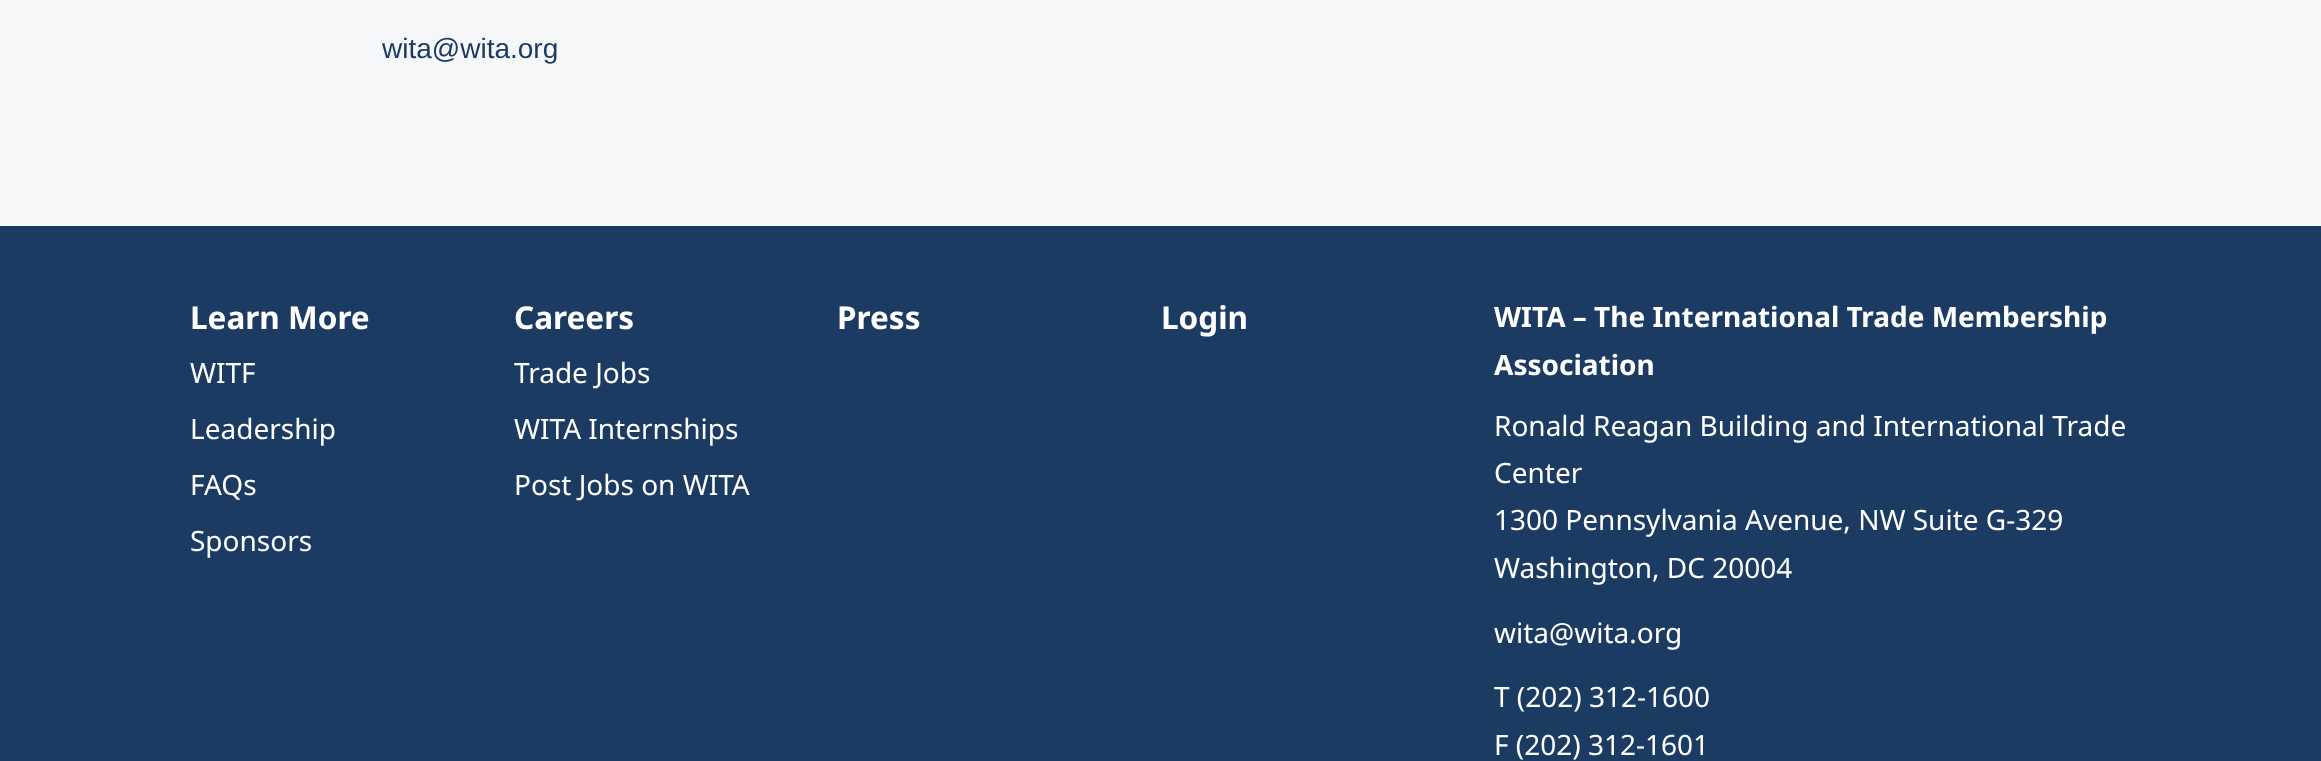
<svg xmlns="http://www.w3.org/2000/svg" width="2321" height="761" viewBox="0 0 2321 761">
  <rect width="100%" height="100%" fill="#f6f7f9"/>
  <text x="382" y="58" font-family="Liberation Sans" font-size="28" fill="#1c3b63">wita@wita.org</text>
  <rect x="0" y="226" width="2321" height="535" fill="#1c3b63"/>
  <text x="190" y="329" font-family="Noto Sans" font-size="31.5" font-weight="bold" fill="#ffffff">Learn More</text>
  <text x="190" y="383" font-family="Noto Sans" font-size="28" fill="#ffffff">WITF</text>
  <text x="190" y="439" font-family="Noto Sans" font-size="28" fill="#ffffff">Leadership</text>
  <text x="190" y="495" font-family="Noto Sans" font-size="28" fill="#ffffff">FAQs</text>
  <text x="190" y="551" font-family="Noto Sans" font-size="28" fill="#ffffff">Sponsors</text>
  <text x="514" y="329" font-family="Noto Sans" font-size="31.5" font-weight="bold" fill="#ffffff">Careers</text>
  <text x="514" y="383" font-family="Noto Sans" font-size="28" fill="#ffffff">Trade Jobs</text>
  <text x="514" y="439" font-family="Noto Sans" font-size="28" fill="#ffffff">WITA Internships</text>
  <text x="514" y="495" font-family="Noto Sans" font-size="28" fill="#ffffff">Post Jobs on WITA</text>
  <text x="837" y="329" font-family="Noto Sans" font-size="31.5" font-weight="bold" fill="#ffffff">Press</text>
  <text x="1161" y="329" font-family="Noto Sans" font-size="31.5" font-weight="bold" fill="#ffffff">Login</text>
  <text x="1494" y="327" font-family="Noto Sans" font-size="28" font-weight="bold" fill="#ffffff">WITA – The International Trade Membership</text>
  <text x="1494" y="375" font-family="Noto Sans" font-size="28" font-weight="bold" fill="#ffffff">Association</text>
  <text x="1494" y="436" font-family="Noto Sans" font-size="28" fill="#ffffff">Ronald Reagan Building and International Trade</text>
  <text x="1494" y="483" font-family="Noto Sans" font-size="28" fill="#ffffff">Center</text>
  <text x="1494" y="530" font-family="Noto Sans" font-size="28" fill="#ffffff">1300 Pennsylvania Avenue, NW Suite G-329</text>
  <text x="1494" y="578" font-family="Noto Sans" font-size="28" fill="#ffffff">Washington, DC 20004</text>
  <text x="1494" y="643" font-family="Noto Sans" font-size="28" fill="#ffffff">wita@wita.org</text>
  <text x="1494" y="707" font-family="Noto Sans" font-size="28" fill="#ffffff">T (202) 312-1600</text>
  <text x="1494" y="755" font-family="Noto Sans" font-size="28" fill="#ffffff">F (202) 312-1601</text>
</svg>
